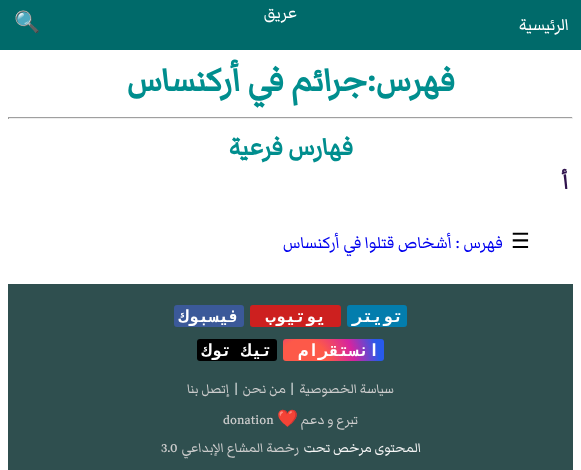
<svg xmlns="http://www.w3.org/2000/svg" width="581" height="470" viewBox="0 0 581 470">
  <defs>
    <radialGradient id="g1" gradientUnits="userSpaceOnUse" cx="303" cy="365" r="85"><stop offset="0.3" stop-color="#fd5949"/><stop offset="0.6" stop-color="#d6249f"/><stop offset="0.9" stop-color="#285aeb"/></radialGradient>
  </defs>
  <rect width="100%" height="100%" fill="#ffffff"/>
  <rect x="0" y="0" width="581" height="50" fill="#006a6a"/>
  <text x="569" y="30" font-family="Markazi Text" font-size="21" direction="rtl" fill="#ffffff">الرئيسية</text>
  <text x="297" y="18" font-family="Markazi Text" font-size="21" direction="rtl" fill="#ffffff">عريق</text>
  <text x="14" y="29" font-family="Noto Color Emoji" font-size="21" fill="#ffffff">🔍</text>
  <text x="455" y="91" font-family="Markazi Text" font-size="42" font-weight="bold" direction="rtl" fill="#008e8e">فهرس:جرائم في أركنساس</text>
  <rect x="8" y="117" width="565" height="1" fill="#9f9f9f"/>
  <rect x="572" y="117" width="1" height="2" fill="#eeeeee"/>
  <rect x="8" y="118" width="565" height="1" fill="#eeeeee"/>
  <rect x="8" y="117" width="1" height="2" fill="#9f9f9f"/>
  <text x="353" y="155" font-family="Markazi Text" font-size="31.5" font-weight="bold" direction="rtl" fill="#008e8e">فهارس فرعية</text>
  <text x="568" y="189" font-family="Markazi Text" font-size="27" font-weight="bold" direction="rtl" fill="#2f134d">أ</text>
  <text x="511" y="248" font-family="DejaVu Sans" font-size="21" fill="#000000">☰</text>
  <text x="503" y="248" font-family="Markazi Text" font-size="21" direction="rtl" fill="#0000ee">فهرس :</text>
  <text x="452" y="248" font-family="Markazi Text" font-size="21" direction="rtl" fill="#0000ee">أشخاص قتلوا في أركنساس</text>
  <rect x="8" y="284" width="565" height="186" fill="#2f4f4f"/>
  <rect x="347" y="305" width="60" height="22" rx="3" fill="#037dad"/>
  <text x="403" y="322" font-family="DejaVu Sans Mono" font-size="16.75" font-weight="bold" direction="rtl" fill="#ffffff">تويتر</text>
  <rect x="250" y="305" width="91" height="22" rx="3" fill="#cd201f"/>
  <text x="326" y="322" font-family="DejaVu Sans Mono" font-size="16.75" font-weight="bold" direction="rtl" fill="#ffffff">يوتيوب</text>
  <rect x="174" y="305" width="70" height="22" rx="3" fill="#3b5999"/>
  <text x="239" y="322" font-family="DejaVu Sans Mono" font-size="16.75" font-weight="bold" direction="rtl" fill="#ffffff">فيسبوك</text>
  <rect x="283" y="339" width="101" height="22" rx="3" fill="url(#g1)"/>
  <text x="379" y="356" font-family="DejaVu Sans Mono" font-size="16.75" font-weight="bold" direction="rtl" fill="#ffffff">انستقرام</text>
  <rect x="197" y="339" width="80" height="22" rx="3" fill="#000000"/>
  <text x="272" y="356" font-family="DejaVu Sans Mono" font-size="16.75" font-weight="bold" direction="rtl" fill="#ffffff">تيك توك</text>
  <text x="394" y="393" font-family="Markazi Text" font-size="16.75" direction="rtl" fill="#cccccc">سياسة الخصوصية</text>
  <text x="290" y="393" font-family="Markazi Text" font-size="16.75" fill="#f5f5f5">|</text>
  <text x="286" y="393" font-family="Markazi Text" font-size="16.75" direction="rtl" fill="#cccccc">من نحن</text>
  <text x="234" y="393" font-family="Markazi Text" font-size="16.75" fill="#f5f5f5">|</text>
  <text x="229" y="393" font-family="Markazi Text" font-size="16.75" direction="rtl" fill="#cccccc">إتصل بنا</text>
  <text x="358" y="424" font-family="Markazi Text" font-size="16.75" direction="rtl" fill="#cccccc">تبرع و دعم</text>
  <text x="298" y="424" font-family="Noto Color Emoji" font-size="16.75" direction="rtl" fill="#cccccc">❤️</text>
  <text x="223" y="424" font-family="Markazi Text" font-size="16.75" fill="#cccccc">donation</text>
  <text x="421" y="452" font-family="Markazi Text" font-size="16.75" direction="rtl" fill="#f5f5f5">المحتوى مرخص تحت</text>
  <text x="299" y="452" font-family="Markazi Text" font-size="16.75" direction="rtl" fill="#cccccc">رخصة المشاع الإبداعي</text>
  <text x="161" y="452" font-family="Markazi Text" font-size="16.75" fill="#cccccc">3.0</text>
</svg>
